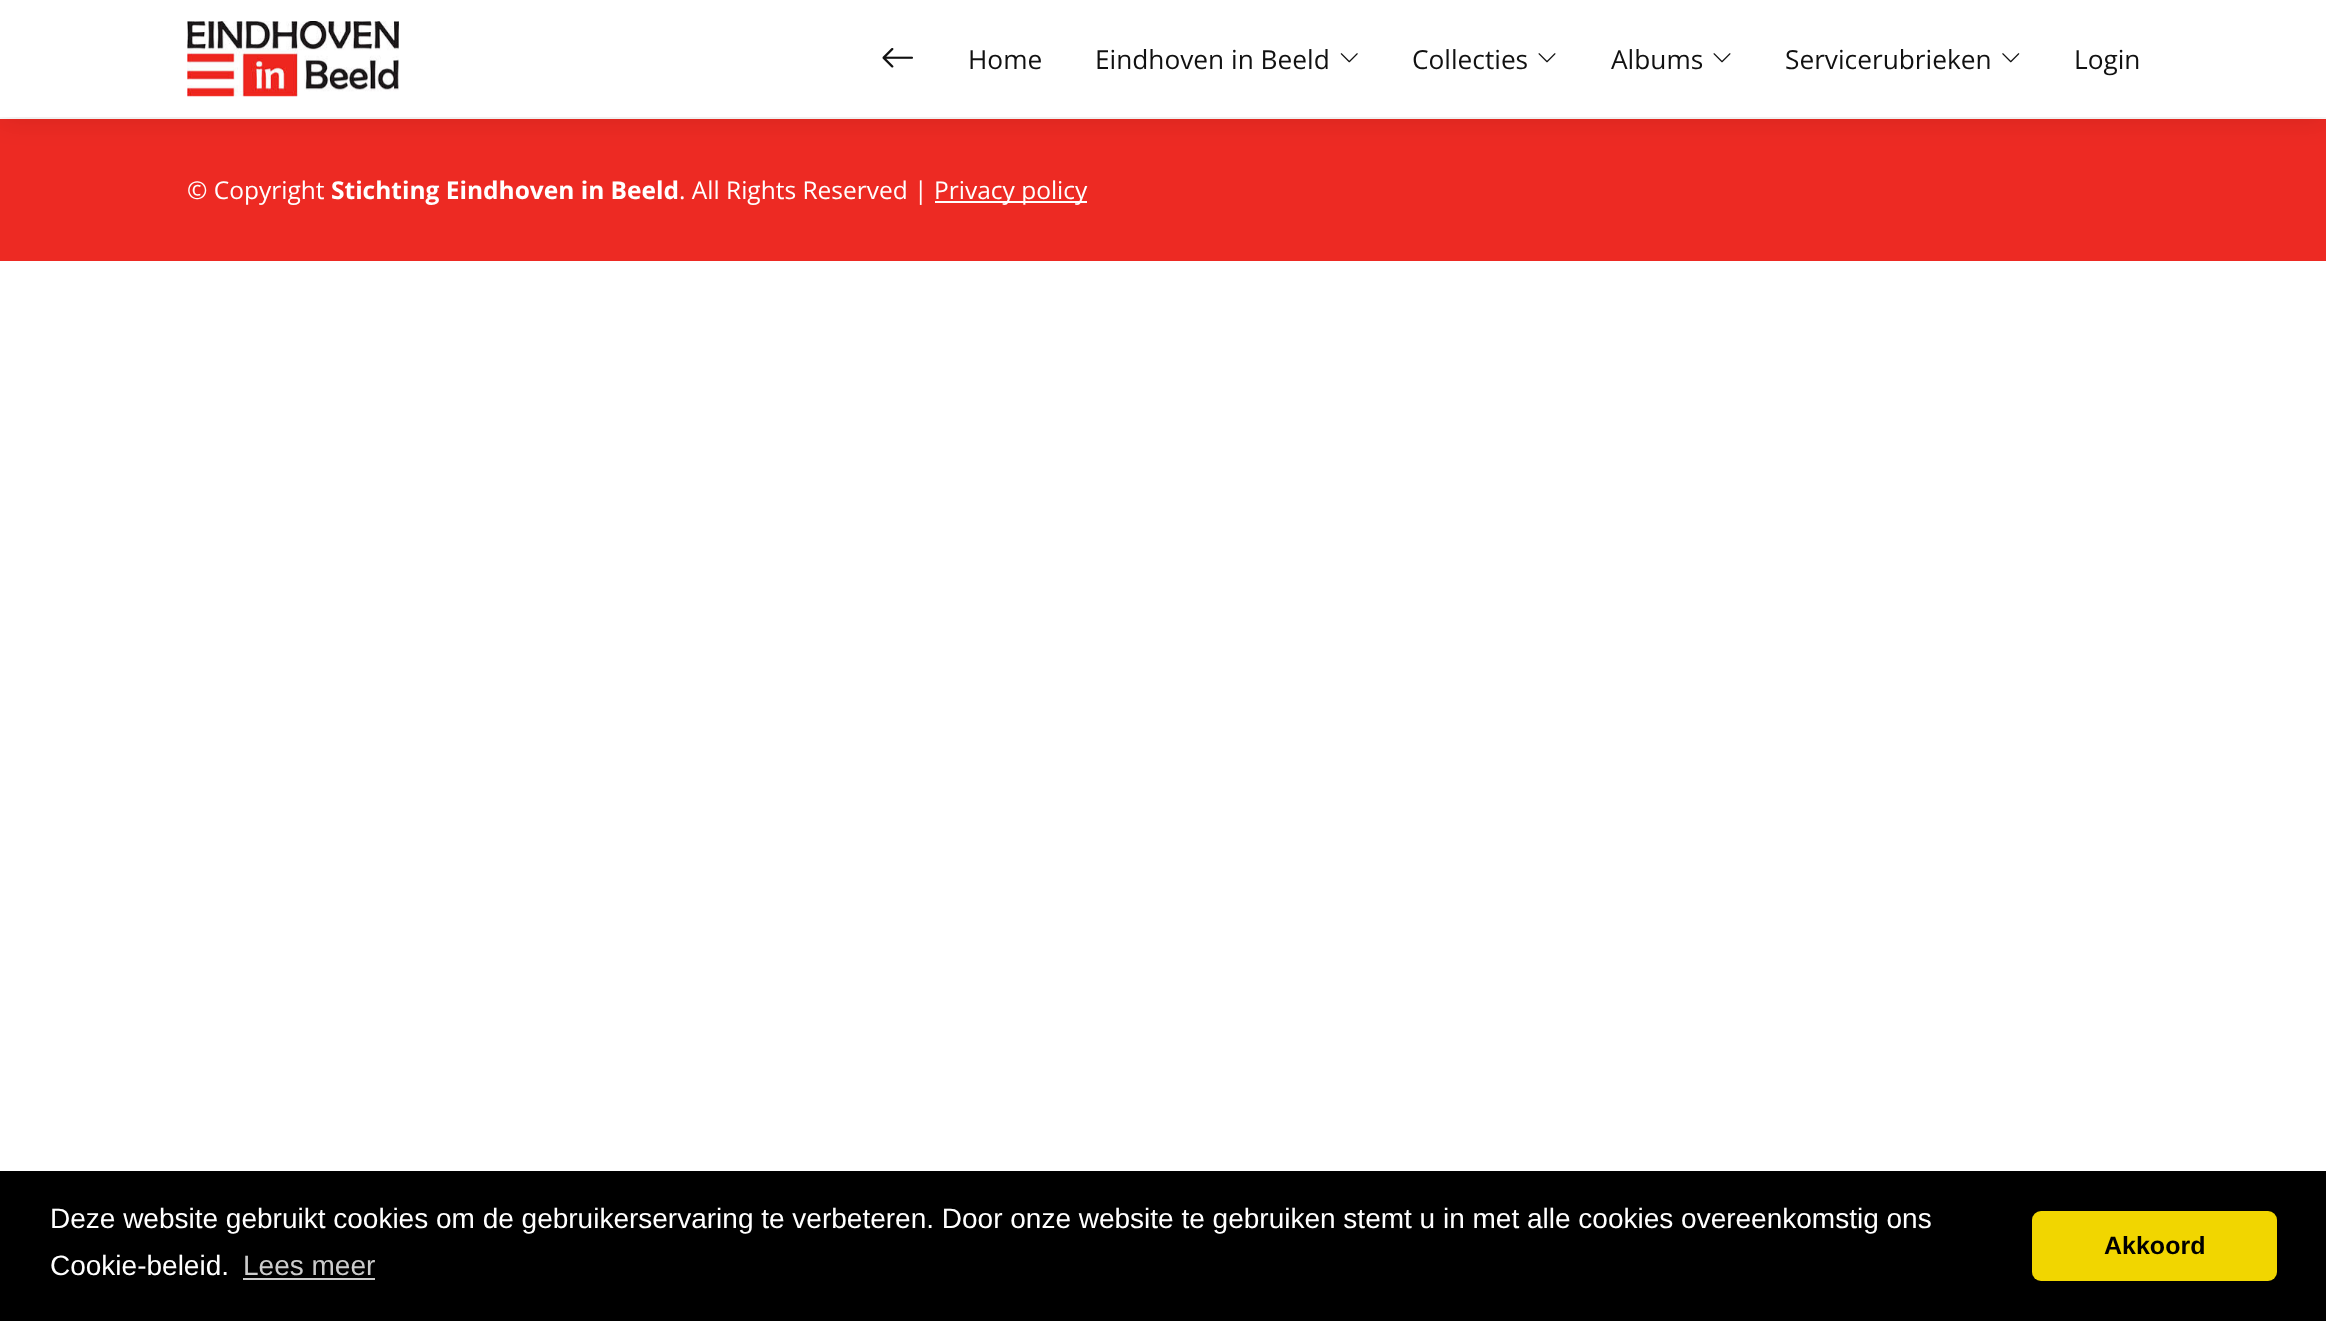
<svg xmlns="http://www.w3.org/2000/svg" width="2326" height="1321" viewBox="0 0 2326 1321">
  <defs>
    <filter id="blur1" x="-50%" y="-200%" width="200%" height="500%"><feGaussianBlur stdDeviation="13"/></filter>
  </defs>
  <rect width="100%" height="100%" fill="#ffffff"/>
  <rect x="0" y="119" width="2326" height="142" fill="#ed2a23"/>
  <rect x="0" y="4" width="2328" height="117" fill="#000000" fill-opacity="0.1" filter="url(#blur1)"/>
  <rect x="0" y="0" width="2326" height="117" fill="#ffffff"/>
  <image x="187" y="21" width="212" height="76" href="img1.png"/>
  <image x="882" y="48" width="31" height="20" href="img2.png"/>
  <text x="968" y="69" font-family="Open Sans" font-size="26.25" fill="#111111">Home</text>
  <text x="1095" y="69" font-family="Open Sans" font-size="26.25" fill="#111111">Eindhoven in Beeld</text>
  <image x="1340" y="53" width="18" height="10" href="img3.png"/>
  <text x="1412" y="69" font-family="Open Sans" font-size="26.25" fill="#111111">Collecties</text>
  <image x="1538" y="53" width="18" height="10" href="img4.png"/>
  <text x="1611" y="69" font-family="Open Sans" font-size="26.25" fill="#111111">Albums</text>
  <image x="1713" y="53" width="18" height="10" href="img4.png"/>
  <text x="1785" y="69" font-family="Open Sans" font-size="26.25" fill="#111111">Servicerubrieken</text>
  <image x="2002" y="53" width="18" height="10" href="img5.png"/>
  <text x="2074" y="69" font-family="Open Sans" font-size="26.25" fill="#111111">Login</text>
  <text x="187" y="199" font-family="Open Sans" font-size="24.5" fill="#ffffff">© Copyright</text>
  <text x="331" y="199" font-family="Open Sans" font-size="24.5" font-weight="bold" fill="#ffffff">Stichting Eindhoven in Beeld</text>
  <text x="679" y="199" font-family="Open Sans" font-size="24.5" fill="#ffffff">. All Rights Reserved |</text>
  <rect x="935" y="201" width="152" height="2" fill="#ffffff"/>
  <text x="934" y="199" font-family="Open Sans" font-size="24.5" fill="#ffffff">Privacy policy</text>
  <rect x="0" y="1171" width="2326" height="150" fill="#000000"/>
  <text x="50" y="1228" font-family="Liberation Sans" font-size="28" fill="#ffffff">Deze website gebruikt cookies om de gebruikerservaring te verbeteren. Door onze website te gebruiken stemt u in met alle cookies overeenkomstig ons</text>
  <text x="50" y="1275" font-family="Liberation Sans" font-size="28" fill="#ffffff">Cookie-beleid.</text>
  <text x="243" y="1275" font-family="Liberation Sans" font-size="28" fill="#cccccc">Lees meer</text>
  <rect x="243" y="1278" width="132" height="2" fill="#cccccc"/>
  <rect x="2032" y="1211" width="245" height="70" rx="9" fill="#f1d600"/>
  <text x="2104" y="1254" font-family="Liberation Sans" font-size="25" font-weight="bold" fill="#000000">Akkoord</text>
</svg>
